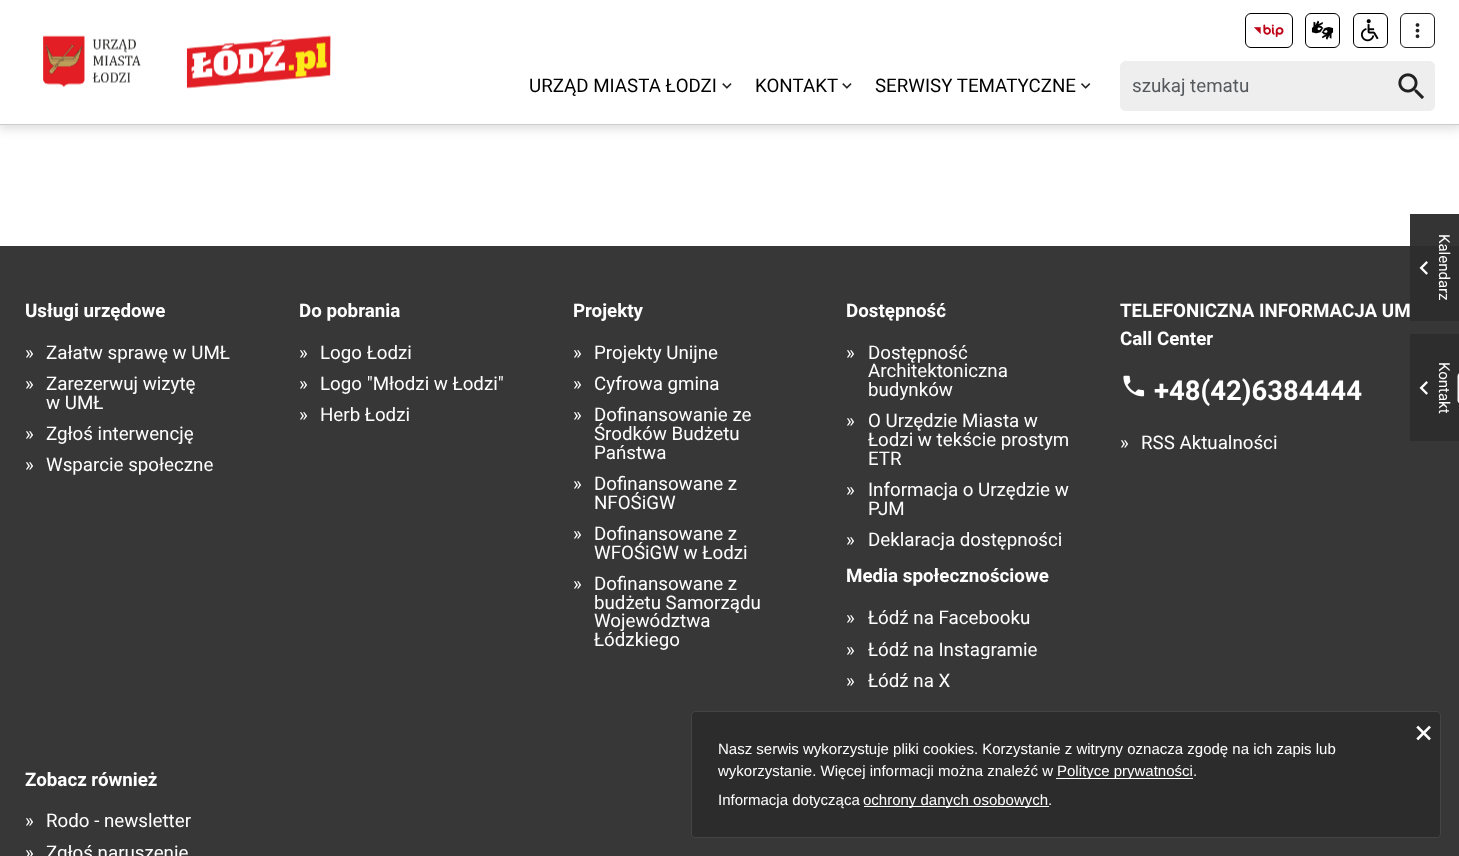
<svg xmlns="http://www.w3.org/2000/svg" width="1459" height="856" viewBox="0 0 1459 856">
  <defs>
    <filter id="blur1" x="-50%" y="-200%" width="200%" height="500%"><feGaussianBlur stdDeviation="6"/></filter>
    <clipPath id="clip1"><rect x="846" y="640" width="224" height="19"/></clipPath>
  </defs>
  <rect width="100%" height="100%" fill="#ffffff"/>
  <rect x="-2" y="-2" width="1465" height="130" fill="#000000" fill-opacity="0.15" filter="url(#blur1)"/>
  <rect x="0" y="0" width="1459" height="124" fill="#ffffff"/>
  <rect x="0" y="124" width="1459" height="1" fill="#cccccc"/>
  <image x="43" y="35" width="98" height="53" href="img1.png"/>
  <image x="186" y="35" width="145" height="54" href="img2.png"/>
  <rect x="1245.5" y="13.5" width="47" height="34" rx="5.5" fill="none" stroke="#000000"/>
  <image x="1254" y="24" width="30" height="14" href="img3.png"/>
  <rect x="1305.5" y="13.5" width="34" height="34" rx="5.5" fill="none" stroke="#000000"/>
  <image x="1311" y="20" width="23" height="20" href="img4.png"/>
  <rect x="1353.5" y="13.5" width="34" height="34" rx="5.5" fill="none" stroke="#000000"/>
  <image x="1361" y="19" width="18" height="23" href="img5.png"/>
  <rect x="1400.5" y="13.5" width="34" height="34" rx="5.5" fill="none" stroke="#212121"/>
  <image x="1415" y="23" width="5" height="16" href="img6.png"/>
  <text x="529" y="92" font-family="Roboto" font-size="18.75" fill="#000000">URZĄD MIASTA ŁODZI</text>
  <image x="722" y="83" width="10" height="6" href="img7.png"/>
  <text x="755" y="92" font-family="Roboto" font-size="18.75" fill="#000000">KONTAKT</text>
  <image x="842" y="83" width="10" height="6" href="img7.png"/>
  <text x="875" y="92" font-family="Roboto" font-size="18.75" fill="#000000">SERWISY TEMATYCZNE</text>
  <image x="1081" y="83" width="10" height="6" href="img8.png"/>
  <path d="M1126 61H1388V111H1126C1122.5 111 1120 108.5 1120 105V67C1120 63.5 1122.5 61 1126 61Z" fill="#eeeeee"/>
  <text x="1132" y="92" font-family="Roboto" font-size="18.75" fill="#565a5e">szukaj tematu</text>
  <path d="M1388 61H1429C1432.5 61 1435 63.5 1435 67V105C1435 108.5 1432.5 111 1429 111H1388Z" fill="#eeeeee"/>
  <image x="1398" y="73" width="26" height="26" href="img9.png"/>
  <rect x="0" y="246" width="1459" height="610" fill="#373737"/>
  <text x="25" y="317" font-family="Roboto" font-size="18.75" font-weight="bold" fill="#ffffff">Usługi urzędowe</text>
  <text x="25" y="359" font-family="Roboto" font-size="18.75" fill="#ffffff">»</text>
  <text x="46" y="359" font-family="Roboto" font-size="18.75" fill="#ffffff">Załatw sprawę w UMŁ</text>
  <text x="25" y="390" font-family="Roboto" font-size="18.75" fill="#ffffff">»</text>
  <text x="46" y="390" font-family="Roboto" font-size="18.75" fill="#ffffff">Zarezerwuj wizytę</text>
  <text x="46" y="409" font-family="Roboto" font-size="18.75" fill="#ffffff">w UMŁ</text>
  <text x="25" y="440" font-family="Roboto" font-size="18.75" fill="#ffffff">»</text>
  <text x="46" y="440" font-family="Roboto" font-size="18.75" fill="#ffffff">Zgłoś interwencję</text>
  <text x="25" y="471" font-family="Roboto" font-size="18.75" fill="#ffffff">»</text>
  <text x="46" y="471" font-family="Roboto" font-size="18.75" fill="#ffffff">Wsparcie społeczne</text>
  <text x="299" y="317" font-family="Roboto" font-size="18.75" font-weight="bold" fill="#ffffff">Do pobrania</text>
  <text x="299" y="359" font-family="Roboto" font-size="18.75" fill="#ffffff">»</text>
  <text x="320" y="359" font-family="Roboto" font-size="18.75" fill="#ffffff">Logo Łodzi</text>
  <text x="299" y="390" font-family="Roboto" font-size="18.75" fill="#ffffff">»</text>
  <text x="320" y="390" font-family="Roboto" font-size="18.75" fill="#ffffff">Logo "Młodzi w Łodzi"</text>
  <text x="299" y="421" font-family="Roboto" font-size="18.75" fill="#ffffff">»</text>
  <text x="320" y="421" font-family="Roboto" font-size="18.75" fill="#ffffff">Herb Łodzi</text>
  <text x="573" y="317" font-family="Roboto" font-size="18.75" font-weight="bold" fill="#ffffff">Projekty</text>
  <text x="573" y="359" font-family="Roboto" font-size="18.75" fill="#ffffff">»</text>
  <text x="594" y="359" font-family="Roboto" font-size="18.75" fill="#ffffff">Projekty Unijne</text>
  <text x="573" y="390" font-family="Roboto" font-size="18.75" fill="#ffffff">»</text>
  <text x="594" y="390" font-family="Roboto" font-size="18.75" fill="#ffffff">Cyfrowa gmina</text>
  <text x="573" y="421" font-family="Roboto" font-size="18.75" fill="#ffffff">»</text>
  <text x="594" y="421" font-family="Roboto" font-size="18.75" fill="#ffffff">Dofinansowanie ze</text>
  <text x="594" y="440" font-family="Roboto" font-size="18.75" fill="#ffffff">Środków Budżetu</text>
  <text x="594" y="459" font-family="Roboto" font-size="18.75" fill="#ffffff">Państwa</text>
  <text x="573" y="490" font-family="Roboto" font-size="18.75" fill="#ffffff">»</text>
  <text x="594" y="490" font-family="Roboto" font-size="18.75" fill="#ffffff">Dofinansowane z</text>
  <text x="594" y="509" font-family="Roboto" font-size="18.75" fill="#ffffff">NFOŚiGW</text>
  <text x="573" y="540" font-family="Roboto" font-size="18.75" fill="#ffffff">»</text>
  <text x="594" y="540" font-family="Roboto" font-size="18.75" fill="#ffffff">Dofinansowane z</text>
  <text x="594" y="559" font-family="Roboto" font-size="18.75" fill="#ffffff">WFOŚiGW w Łodzi</text>
  <text x="573" y="590" font-family="Roboto" font-size="18.75" fill="#ffffff">»</text>
  <text x="594" y="590" font-family="Roboto" font-size="18.75" fill="#ffffff">Dofinansowane z</text>
  <text x="594" y="609" font-family="Roboto" font-size="18.75" fill="#ffffff">budżetu Samorządu</text>
  <text x="594" y="627" font-family="Roboto" font-size="18.75" fill="#ffffff">Województwa</text>
  <text x="594" y="646" font-family="Roboto" font-size="18.75" fill="#ffffff">Łódzkiego</text>
  <text x="846" y="317" font-family="Roboto" font-size="18.75" font-weight="bold" fill="#ffffff">Dostępność</text>
  <text x="846" y="359" font-family="Roboto" font-size="18.75" fill="#ffffff">»</text>
  <text x="868" y="359" font-family="Roboto" font-size="18.75" fill="#ffffff">Dostępność</text>
  <text x="868" y="377" font-family="Roboto" font-size="18.75" fill="#ffffff">Architektoniczna</text>
  <text x="868" y="396" font-family="Roboto" font-size="18.75" fill="#ffffff">budynków</text>
  <text x="846" y="427" font-family="Roboto" font-size="18.75" fill="#ffffff">»</text>
  <text x="868" y="427" font-family="Roboto" font-size="18.75" fill="#ffffff">O Urzędzie Miasta w</text>
  <text x="868" y="446" font-family="Roboto" font-size="18.75" fill="#ffffff">Łodzi w tekście prostym</text>
  <text x="868" y="465" font-family="Roboto" font-size="18.75" fill="#ffffff">ETR</text>
  <text x="846" y="496" font-family="Roboto" font-size="18.75" fill="#ffffff">»</text>
  <text x="868" y="496" font-family="Roboto" font-size="18.75" fill="#ffffff">Informacja o Urzędzie w</text>
  <text x="868" y="515" font-family="Roboto" font-size="18.75" fill="#ffffff">PJM</text>
  <text x="846" y="546" font-family="Roboto" font-size="18.75" fill="#ffffff">»</text>
  <text x="868" y="546" font-family="Roboto" font-size="18.75" fill="#ffffff">Deklaracja dostępności</text>
  <text x="846" y="582" font-family="Roboto" font-size="18.75" font-weight="bold" fill="#ffffff">Media społecznościowe</text>
  <text x="846" y="624" font-family="Roboto" font-size="18.75" fill="#ffffff">»</text>
  <text x="868" y="624" font-family="Roboto" font-size="18.75" fill="#ffffff">Łódź na Facebooku</text>
  <text x="846" y="656" font-family="Roboto" font-size="18.75" fill="#ffffff">»</text>
  <g clip-path="url(#clip1)">
    <text x="868" y="656" font-family="Roboto" font-size="18.75" fill="#ffffff">Łódź na Instagramie</text>
  </g>
  <text x="846" y="687" font-family="Roboto" font-size="18.75" fill="#ffffff">»</text>
  <text x="868" y="687" font-family="Roboto" font-size="18.75" fill="#ffffff">Łódź na X</text>
  <text x="25" y="786" font-family="Roboto" font-size="18.75" font-weight="bold" fill="#ffffff">Zobacz również</text>
  <text x="25" y="827" font-family="Roboto" font-size="18.75" fill="#ffffff">»</text>
  <text x="46" y="827" font-family="Roboto" font-size="18.75" fill="#ffffff">Rodo - newsletter</text>
  <text x="25" y="859" font-family="Roboto" font-size="18.75" fill="#ffffff">»</text>
  <text x="46" y="859" font-family="Roboto" font-size="18.75" fill="#ffffff">Zgłoś naruszenie</text>
  <text x="1120" y="317" font-family="Roboto" font-size="18.75" font-weight="bold" fill="#ffffff">TELEFONICZNA INFORMACJA UM</text>
  <text x="1120" y="345" font-family="Roboto" font-size="18.75" font-weight="bold" fill="#ffffff">Call Center</text>
  <image x="1123" y="375" width="22" height="22" href="img10.png"/>
  <text x="1154" y="400" font-family="Roboto" font-size="27.5" font-weight="bold" fill="#ffffff">+48(42)6384444</text>
  <text x="1120" y="449" font-family="Roboto" font-size="18.75" fill="#ffffff">»</text>
  <text x="1141" y="449" font-family="Roboto" font-size="18.75" fill="#ffffff">RSS Aktualności</text>
  <rect x="1410" y="214" width="49" height="107" fill="#2d2d2d" fill-opacity="0.97"/>
  <image x="1419" y="261" width="9" height="14" href="img11.png"/>
  <text x="1439" y="234" transform="rotate(90 1439 234)" font-family="Roboto" font-size="15" fill="#ffffff">Kalendarz</text>
  <rect x="1410" y="334" width="49" height="107" fill="#2d2d2d"/>
  <image x="1419" y="381" width="9" height="14" href="img12.png"/>
  <text x="1439" y="362" transform="rotate(90 1439 362)" font-family="Roboto" font-size="15" fill="#ffffff">Kontakt</text>
  <image x="1457" y="373" width="2" height="30" href="img13.png"/>
  <rect x="691.5" y="711.5" width="749" height="126" rx="3.5" fill="#292929" fill-opacity="0.8" stroke="#444444"/>
  <text x="1414" y="743" font-family="DejaVu Sans Mono" font-size="32" fill="#ffffff">×</text>
  <text x="718" y="754" font-family="Liberation Sans" font-size="15" fill="#ffffff">Nasz serwis wykorzystuje pliki cookies. Korzystanie z witryny oznacza zgodę na ich zapis lub</text>
  <text x="718" y="776" font-family="Liberation Sans" font-size="15" fill="#ffffff">wykorzystanie. Więcej informacji można znaleźć w</text>
  <rect x="1056" y="778" width="137" height="1" fill="#ffffff"/>
  <text x="1057" y="776" font-family="Liberation Sans" font-size="15" fill="#ffffff">Polityce prywatności.</text>
  <text x="718" y="805" font-family="Liberation Sans" font-size="15" fill="#ffffff">Informacja dotycząca</text>
  <rect x="864" y="806" width="185" height="1" fill="#ffffff"/>
  <text x="863" y="805" font-family="Liberation Sans" font-size="15" fill="#ffffff">ochrony danych osobowych.</text>
</svg>
